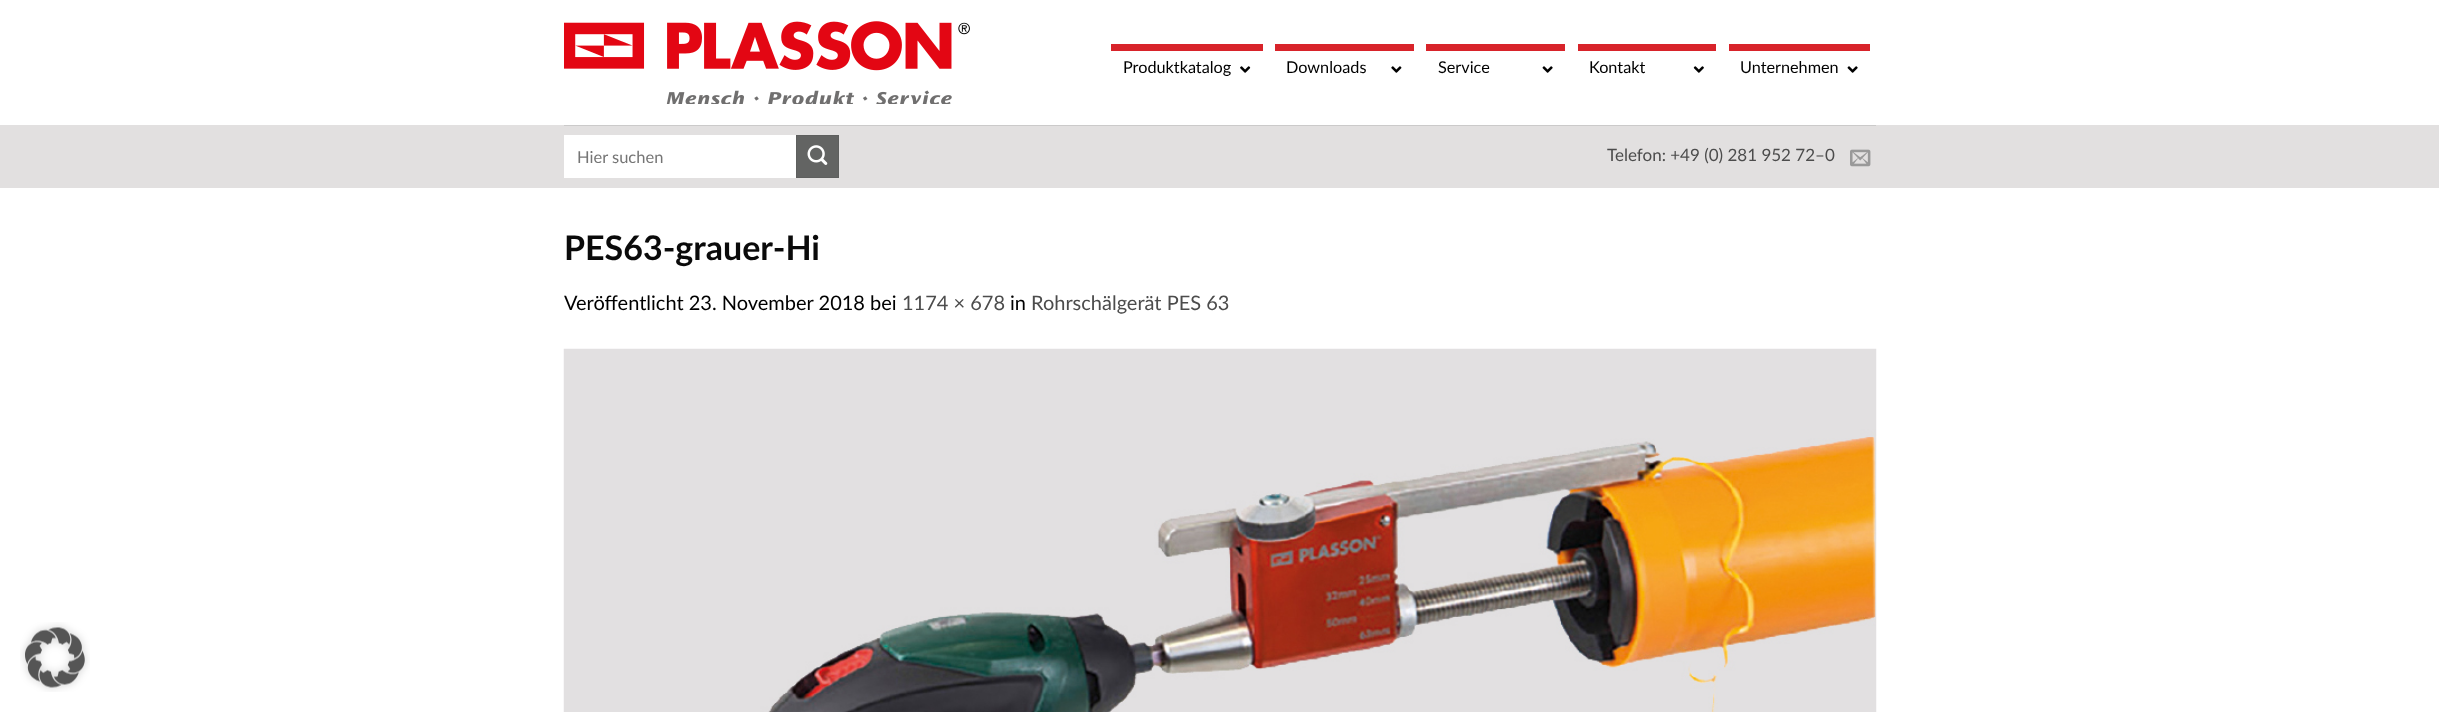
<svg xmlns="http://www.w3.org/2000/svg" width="2439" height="712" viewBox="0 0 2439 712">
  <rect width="100%" height="100%" fill="#ffffff"/>
  <image x="564" y="21" width="406" height="83" href="img1.png"/>
  <rect x="1111" y="44" width="152" height="7" fill="#d8232a"/>
  <text x="1123" y="73" font-family="Lato" font-size="16.25" fill="#000000">Produktkatalog</text>
  <image x="1240" y="66" width="11" height="7" href="img2.png"/>
  <rect x="1275" y="44" width="139" height="7" fill="#d8232a"/>
  <text x="1286" y="73" font-family="Lato" font-size="16.25" fill="#000000">Downloads</text>
  <image x="1391" y="66" width="11" height="7" href="img3.png"/>
  <rect x="1426" y="44" width="139" height="7" fill="#d8232a"/>
  <text x="1438" y="73" font-family="Lato" font-size="16.25" fill="#000000">Service</text>
  <image x="1542" y="66" width="11" height="7" href="img4.png"/>
  <rect x="1578" y="44" width="138" height="7" fill="#d8232a"/>
  <text x="1589" y="73" font-family="Lato" font-size="16.25" fill="#000000">Kontakt</text>
  <image x="1693" y="66" width="11" height="7" href="img5.png"/>
  <rect x="1729" y="44" width="141" height="7" fill="#d8232a"/>
  <text x="1740" y="73" font-family="Lato" font-size="16.25" fill="#000000">Unternehmen</text>
  <image x="1847" y="66" width="11" height="7" href="img4.png"/>
  <rect x="0" y="125" width="2439" height="63" fill="#e2e0e0"/>
  <rect x="564" y="125" width="1312" height="1" fill="#cbcaca"/>
  <rect x="564" y="135" width="232" height="43" fill="#ffffff"/>
  <text x="577" y="163" font-family="Lato" font-size="16.5" fill="#757575">Hier suchen</text>
  <rect x="796.5" y="135.5" width="42" height="42" fill="#636463" stroke="#5e5f5e"/>
  <image x="807" y="145" width="21" height="20" href="img6.png"/>
  <text x="1607" y="161" font-family="Lato" font-size="17" fill="#4c4c4c">Telefon: +49 (0) 281 952 72–0</text>
  <image x="1850" y="149" width="21" height="18" href="img7.png"/>
  <text x="564" y="260" font-family="Lato" font-size="34" font-weight="bold" fill="#0a0a0a">PES63-grauer-Hi</text>
  <text x="564" y="310" font-family="Lato" font-size="20" fill="#000000">Veröffentlicht 23. November 2018 bei</text>
  <text x="902" y="310" font-family="Lato" font-size="20" fill="#4c4c4c">1174 × 678</text>
  <text x="1010" y="310" font-family="Lato" font-size="20" fill="#000000">in</text>
  <text x="1031" y="310" font-family="Lato" font-size="20" fill="#4c4c4c">Rohrschälgerät PES 63</text>
  <image x="563" y="348" width="1314" height="364" href="img8.png"/>
  <image x="20" y="622" width="70" height="70" href="img9.png"/>
</svg>
